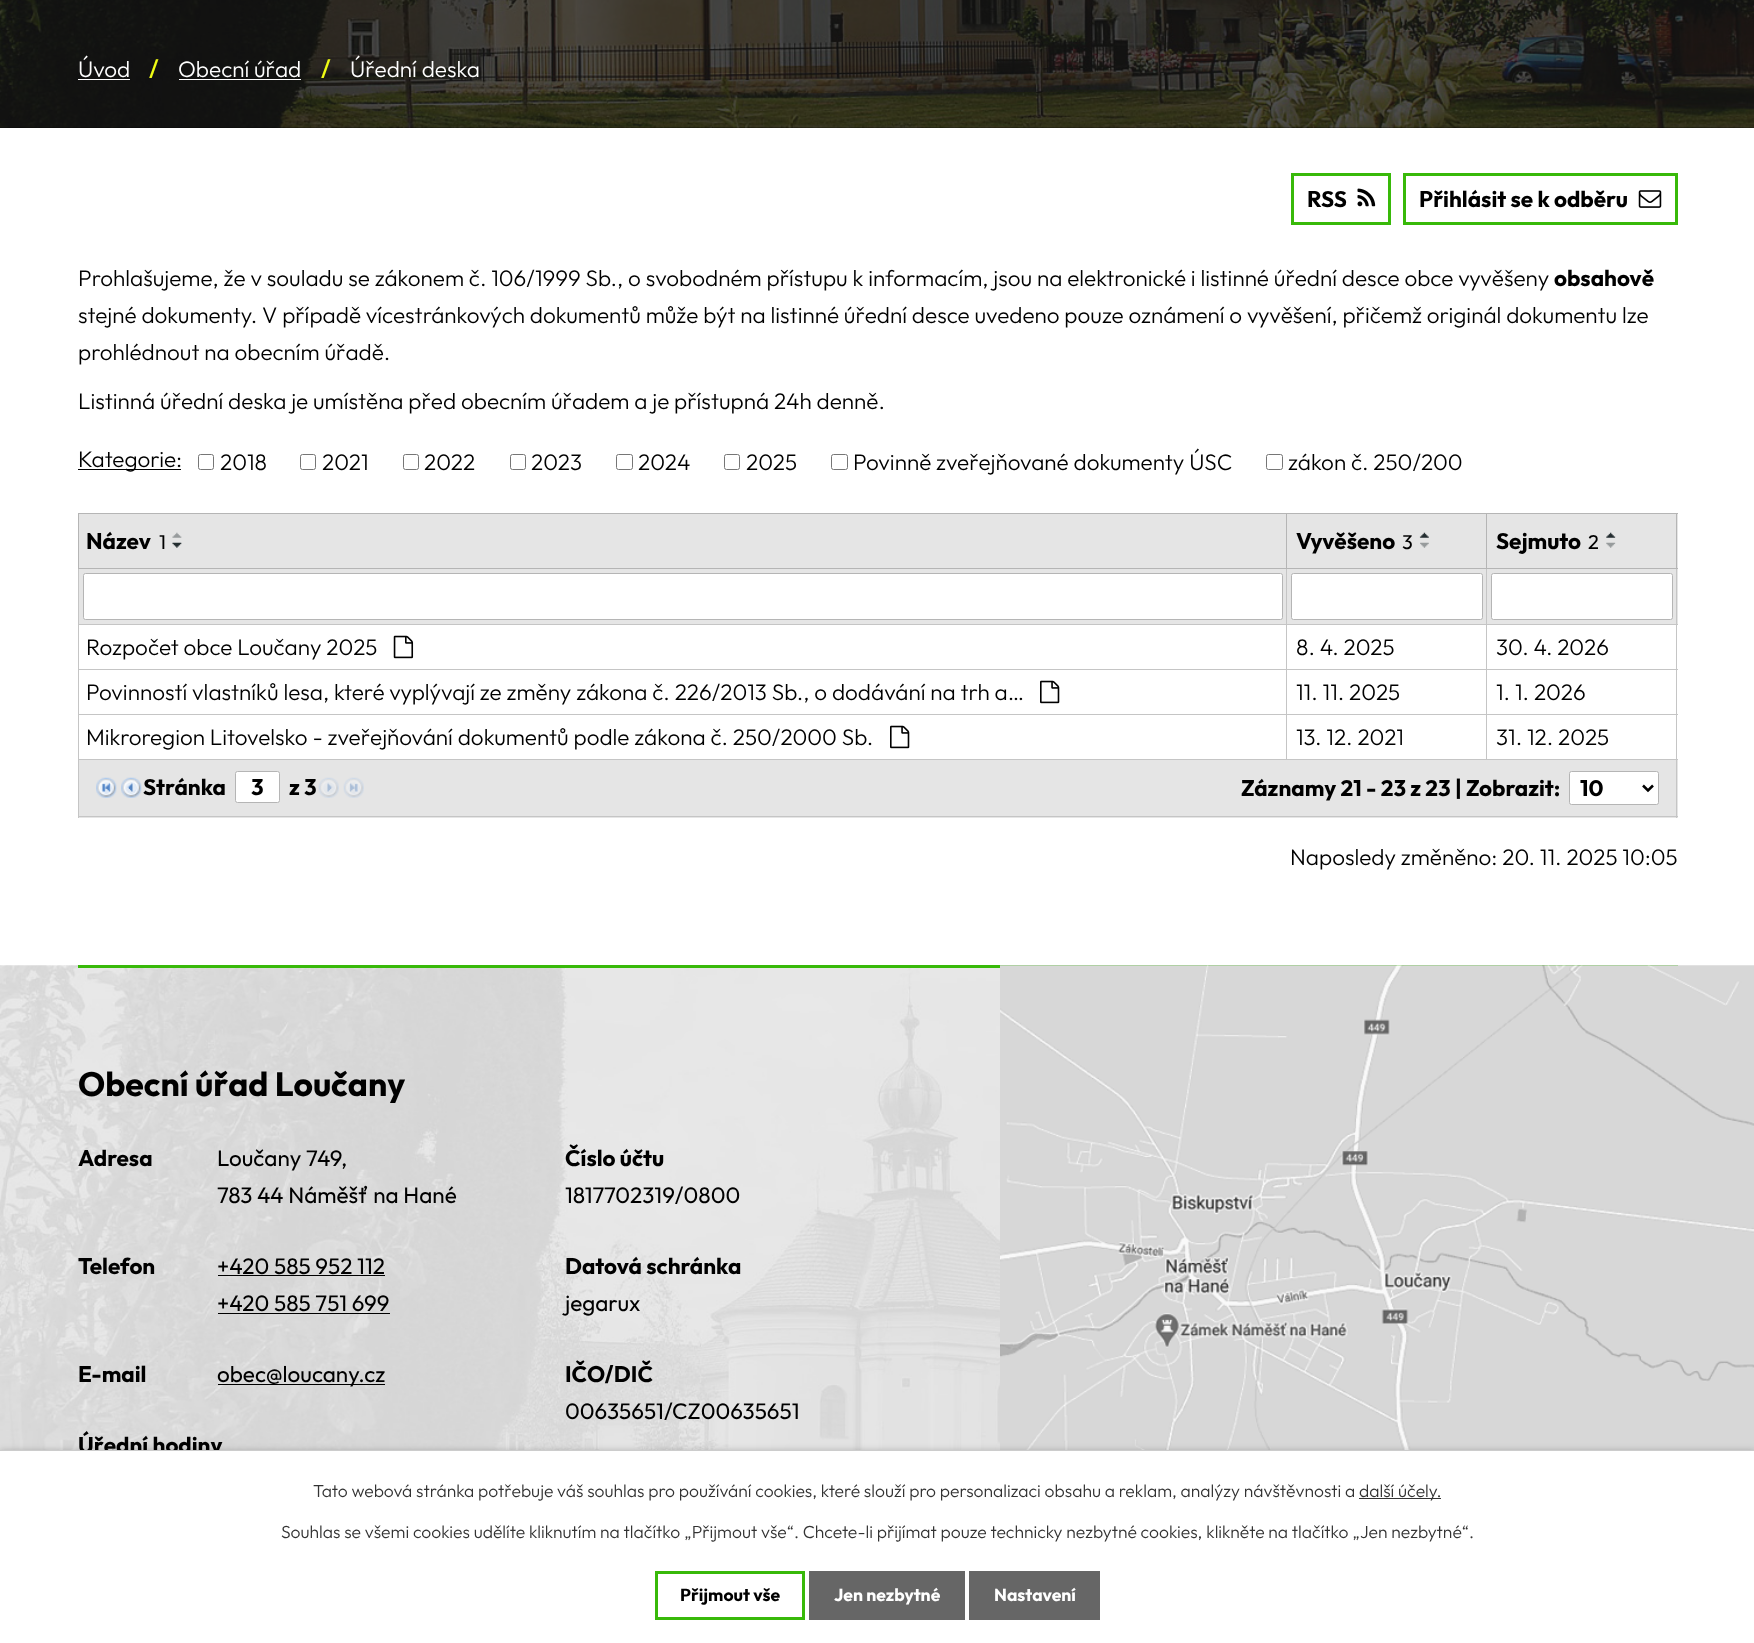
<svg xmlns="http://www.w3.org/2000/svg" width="1754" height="1643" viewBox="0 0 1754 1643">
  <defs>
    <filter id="blur1" x="-50%" y="-200%" width="200%" height="500%"><feGaussianBlur stdDeviation="3"/></filter>
  </defs>
  <rect width="100%" height="100%" fill="#ffffff"/>
  <rect x="0" y="0" width="1754" height="128" fill="#000000"/>
  <image x="0" y="0" width="1754" height="128" href="img1.png"/>
  <text x="78" y="77" font-family="Outfit" font-size="22.5" font-weight="300" fill="#ffffff">Úvod</text>
  <rect x="78" y="79" width="52" height="1" fill="#ffffff"/>
  <text x="149" y="77" font-family="Outfit" font-size="24" font-weight="500" fill="#effc14">/</text>
  <text x="178" y="77" font-family="Outfit" font-size="22.5" font-weight="300" fill="#ffffff">Obecní úřad</text>
  <rect x="179" y="79" width="122" height="1" fill="#ffffff"/>
  <text x="321" y="77" font-family="Outfit" font-size="24" font-weight="500" fill="#effc14">/</text>
  <text x="350" y="77" font-family="Outfit" font-size="22.5" font-weight="300" fill="#ffffff">Úřední deska</text>
  <rect x="1292.5" y="174.5" width="97" height="49" fill="none" stroke="#38b909" stroke-width="3"/>
  <text x="1307" y="207" font-family="Outfit" font-size="22.5" font-weight="bold" fill="#000000">RSS</text>
  <image x="1357" y="188" width="19" height="19" href="img2.png"/>
  <rect x="1404.5" y="174.5" width="272" height="49" fill="none" stroke="#38b909" stroke-width="3"/>
  <text x="1419" y="207" font-family="Outfit" font-size="22.5" font-weight="bold" fill="#000000">Přihlásit se k odběru</text>
  <image x="1638" y="190" width="24" height="18" href="img3.png"/>
  <text x="78" y="286" font-family="Outfit" font-size="22.5" font-weight="300" fill="#000000">Prohlašujeme, že v souladu se zákonem č. 106/1999 Sb., o svobodném přístupu k informacím, jsou na elektronické i listinné úřední desce obce vyvěšeny</text>
  <text x="1554" y="286" font-family="Outfit" font-size="22.5" font-weight="bold" fill="#000000">obsahově</text>
  <text x="78" y="323" font-family="Outfit" font-size="22.5" font-weight="300" fill="#000000">stejné dokumenty. V případě vícestránkových dokumentů může být na listinné úřední desce uvedeno pouze oznámení o vyvěšení, přičemž originál dokumentu lze</text>
  <text x="78" y="360" font-family="Outfit" font-size="22.5" font-weight="300" fill="#000000">prohlédnout na obecním úřadě.</text>
  <text x="78" y="409" font-family="Outfit" font-size="22.5" font-weight="300" fill="#000000">Listinná úřední deska je umístěna před obecním úřadem a je přístupná 24h denně.</text>
  <rect x="78" y="469" width="103" height="1" fill="#000000"/>
  <text x="78" y="467" font-family="Outfit" font-size="22.5" font-weight="300" fill="#000000">Kategorie:</text>
  <rect x="198.5" y="454.5" width="15" height="15" rx="2" fill="none" stroke="#767676"/>
  <text x="220" y="470" font-family="Outfit" font-size="22.5" font-weight="300" fill="#000000">2018</text>
  <rect x="300.5" y="454.5" width="15" height="15" rx="2" fill="none" stroke="#767676"/>
  <text x="322" y="470" font-family="Outfit" font-size="22.5" font-weight="300" fill="#000000">2021</text>
  <rect x="403.5" y="454.5" width="15" height="15" rx="2" fill="none" stroke="#767676"/>
  <text x="424" y="470" font-family="Outfit" font-size="22.5" font-weight="300" fill="#000000">2022</text>
  <rect x="510.5" y="454.5" width="15" height="15" rx="2" fill="none" stroke="#767676"/>
  <text x="531" y="470" font-family="Outfit" font-size="22.5" font-weight="300" fill="#000000">2023</text>
  <rect x="616.5" y="454.5" width="16" height="15" rx="2" fill="none" stroke="#767676"/>
  <text x="638" y="470" font-family="Outfit" font-size="22.5" font-weight="300" fill="#000000">2024</text>
  <rect x="724.5" y="454.5" width="15" height="15" rx="2" fill="none" stroke="#767676"/>
  <text x="746" y="470" font-family="Outfit" font-size="22.5" font-weight="300" fill="#000000">2025</text>
  <rect x="831.5" y="454.5" width="16" height="15" rx="2" fill="none" stroke="#767676"/>
  <text x="853" y="470" font-family="Outfit" font-size="22.5" font-weight="300" fill="#000000">Povinně zveřejňované dokumenty ÚSC</text>
  <rect x="1266.5" y="454.5" width="16" height="15" rx="2" fill="none" stroke="#767676"/>
  <text x="1288" y="470" font-family="Outfit" font-size="22.5" font-weight="300" fill="#000000">zákon č. 250/200</text>
  <rect x="79" y="514" width="1599" height="54" fill="#e5e5e5"/>
  <rect x="1486" y="513" width="192" height="1" fill="#b5b5b5"/>
  <rect x="79" y="569" width="1599" height="55" fill="#e5e5e5"/>
  <rect x="1486" y="624" width="192" height="1" fill="#c5c5c5"/>
  <rect x="1486" y="669" width="192" height="1" fill="#c5c5c5"/>
  <rect x="1486" y="714" width="192" height="1" fill="#c5c5c5"/>
  <rect x="1676" y="714" width="1" height="46" fill="#c5c5c5"/>
  <rect x="1676" y="669" width="1" height="46" fill="#c5c5c5"/>
  <rect x="1676" y="568" width="1" height="102" fill="#c5c5c5"/>
  <rect x="1676" y="513" width="1" height="56" fill="#b5b5b5"/>
  <rect x="1486" y="759" width="192" height="1" fill="#c5c5c5"/>
  <rect x="1486" y="714" width="1" height="46" fill="#c5c5c5"/>
  <rect x="1286" y="714" width="202" height="1" fill="#c5c5c5"/>
  <rect x="1486" y="669" width="1" height="46" fill="#c5c5c5"/>
  <rect x="1286" y="669" width="202" height="1" fill="#c5c5c5"/>
  <rect x="1486" y="624" width="1" height="46" fill="#c5c5c5"/>
  <rect x="1286" y="624" width="202" height="1" fill="#c5c5c5"/>
  <rect x="1486" y="568" width="1" height="57" fill="#c5c5c5"/>
  <rect x="1486" y="568" width="192" height="1" fill="#b5b5b5"/>
  <rect x="1486" y="513" width="1" height="56" fill="#b5b5b5"/>
  <rect x="1286" y="513" width="202" height="1" fill="#b5b5b5"/>
  <rect x="1286" y="759" width="202" height="1" fill="#c5c5c5"/>
  <rect x="1286" y="714" width="1" height="46" fill="#c5c5c5"/>
  <rect x="78" y="714" width="1210" height="1" fill="#c5c5c5"/>
  <rect x="1286" y="669" width="1" height="46" fill="#c5c5c5"/>
  <rect x="78" y="669" width="1210" height="1" fill="#c5c5c5"/>
  <rect x="1286" y="624" width="1" height="46" fill="#c5c5c5"/>
  <rect x="78" y="624" width="1210" height="1" fill="#c5c5c5"/>
  <rect x="1286" y="568" width="1" height="57" fill="#c5c5c5"/>
  <rect x="1286" y="568" width="202" height="1" fill="#b5b5b5"/>
  <rect x="1286" y="513" width="1" height="56" fill="#b5b5b5"/>
  <rect x="78" y="513" width="1210" height="1" fill="#b5b5b5"/>
  <rect x="78" y="759" width="1210" height="1" fill="#c5c5c5"/>
  <rect x="78" y="714" width="1" height="46" fill="#c5c5c5"/>
  <rect x="78" y="669" width="1" height="46" fill="#c5c5c5"/>
  <rect x="78" y="568" width="1" height="102" fill="#c5c5c5"/>
  <rect x="78" y="568" width="1210" height="1" fill="#b5b5b5"/>
  <rect x="78" y="513" width="1" height="56" fill="#b5b5b5"/>
  <text x="86" y="549" font-family="Outfit" font-size="22.5" font-weight="bold" fill="#000000">Název</text>
  <text x="159" y="549" font-family="Outfit" font-size="20" fill="#000000">1</text>
  <image x="172" y="532" width="10" height="6" href="img4.png"/>
  <image x="172" y="542" width="10" height="6" href="img5.png"/>
  <text x="1296" y="549" font-family="Outfit" font-size="22.5" font-weight="bold" fill="#000000">Vyvěšeno</text>
  <text x="1402" y="549" font-family="Outfit" font-size="20" fill="#000000">3</text>
  <image x="1419" y="532" width="10" height="6" href="img6.png"/>
  <image x="1420" y="542" width="9" height="6" href="img7.png"/>
  <text x="1496" y="549" font-family="Outfit" font-size="22.5" font-weight="bold" fill="#000000">Sejmuto</text>
  <text x="1588" y="549" font-family="Outfit" font-size="20" fill="#000000">2</text>
  <image x="1606" y="532" width="10" height="6" href="img8.png"/>
  <image x="1606" y="542" width="10" height="6" href="img9.png"/>
  <rect x="83.5" y="573.5" width="1199" height="46" rx="2" fill="#ffffff" stroke="#b5b5b5"/>
  <rect x="1291.5" y="573.5" width="191" height="46" rx="2" fill="#ffffff" stroke="#b5b5b5"/>
  <rect x="1491.5" y="573.5" width="181" height="46" rx="2" fill="#ffffff" stroke="#b5b5b5"/>
  <text x="86" y="655" font-family="Outfit" font-size="22.5" font-weight="300" fill="#000000">Rozpočet obce Loučany 2025</text>
  <image x="393" y="635" width="21" height="24" href="img10.png"/>
  <text x="1296" y="655" font-family="Outfit" font-size="22.5" font-weight="300" fill="#000000">8. 4. 2025</text>
  <text x="1496" y="655" font-family="Outfit" font-size="22.5" font-weight="300" fill="#000000">30. 4. 2026</text>
  <text x="86" y="700" font-family="Outfit" font-size="22.5" font-weight="300" fill="#000000">Povinností vlastníků lesa, které vyplývají ze změny zákona č. 226/2013 Sb., o dodávání na trh a…</text>
  <image x="1040" y="680" width="20" height="24" href="img11.png"/>
  <text x="1296" y="700" font-family="Outfit" font-size="22.5" font-weight="300" fill="#000000">11. 11. 2025</text>
  <text x="1496" y="700" font-family="Outfit" font-size="22.5" font-weight="300" fill="#000000">1. 1. 2026</text>
  <text x="86" y="745" font-family="Outfit" font-size="22.5" font-weight="300" fill="#000000">Mikroregion Litovelsko - zveřejňování dokumentů podle zákona č. 250/2000 Sb.</text>
  <image x="890" y="725" width="20" height="24" href="img11.png"/>
  <text x="1296" y="745" font-family="Outfit" font-size="22.5" font-weight="300" fill="#000000">13. 12. 2021</text>
  <text x="1496" y="745" font-family="Outfit" font-size="22.5" font-weight="300" fill="#000000">31. 12. 2025</text>
  <rect x="79" y="760" width="1599" height="58" fill="#e5e5e5"/>
  <rect x="1676" y="759" width="1" height="59" fill="#c5c5c5"/>
  <rect x="78" y="816" width="1600" height="1" fill="#c5c5c5"/>
  <rect x="78" y="759" width="1" height="59" fill="#c5c5c5"/>
  <image x="96" y="777" width="21" height="21" href="img12.png"/>
  <image x="121" y="777" width="21" height="21" href="img13.png"/>
  <text x="143" y="795" font-family="Outfit" font-size="22.5" font-weight="bold" fill="#000000">Stránka</text>
  <rect x="235.5" y="771.5" width="44" height="31" rx="2" fill="#ffffff" stroke="#b5b5b5"/>
  <text x="251" y="795" font-family="Outfit" font-size="22.5" font-weight="bold" fill="#000000">3</text>
  <text x="289" y="795" font-family="Outfit" font-size="22.5" font-weight="bold" fill="#000000">z 3</text>
  <image x="318" y="777" width="21" height="21" href="img14.png"/>
  <image x="343" y="777" width="21" height="21" href="img15.png"/>
  <text x="1241" y="796" font-family="Outfit" font-size="22.5" font-weight="bold" fill="#000000">Záznamy 21 - 23 z 23 | Zobrazit:</text>
  <rect x="1569.5" y="771.5" width="89" height="33" rx="2" fill="#ffffff" stroke="#b5b5b5"/>
  <path d="M1643 785.5L1648 790.5L1653 785.5" fill="none" stroke="#000000" stroke-width="2.5"/>
  <text x="1580" y="796" font-family="Outfit" font-size="22.5" font-weight="bold" fill="#000000">10</text>
  <text x="1290" y="865" font-family="Outfit" font-size="22.5" font-weight="300" fill="#000000">Naposledy změněno: 20. 11. 2025 10:05</text>
  <image x="0" y="965" width="1000" height="485" href="img16.png"/>
  <rect x="78" y="965" width="1600" height="3" fill="#38b909"/>
  <text x="78" y="1096" font-family="Outfit" font-size="33.75" font-weight="bold" fill="#000000">Obecní úřad Loučany</text>
  <text x="78" y="1166" font-family="Outfit" font-size="22.5" font-weight="bold" fill="#000000">Adresa</text>
  <text x="217" y="1166" font-family="Outfit" font-size="22.5" fill="#000000">Loučany 749,</text>
  <text x="217" y="1203" font-family="Outfit" font-size="22.5" fill="#000000">783 44 Náměšť na Hané</text>
  <text x="78" y="1274" font-family="Outfit" font-size="22.5" font-weight="bold" fill="#000000">Telefon</text>
  <text x="217" y="1274" font-family="Outfit" font-size="22.5" fill="#000000">+420 585 952 112</text>
  <rect x="218" y="1275" width="167" height="1" fill="#000000"/>
  <text x="217" y="1311" font-family="Outfit" font-size="22.5" fill="#000000">+420 585 751 699</text>
  <rect x="218" y="1313" width="172" height="1" fill="#000000"/>
  <text x="78" y="1382" font-family="Outfit" font-size="22.5" font-weight="bold" fill="#000000">E-mail</text>
  <rect x="218" y="1384" width="167" height="1" fill="#000000"/>
  <text x="217" y="1382" font-family="Outfit" font-size="22.5" fill="#000000">obec@loucany.cz</text>
  <text x="78" y="1453" font-family="Outfit" font-size="22.5" font-weight="bold" fill="#000000">Úřední hodiny</text>
  <text x="565" y="1166" font-family="Outfit" font-size="22.5" font-weight="bold" fill="#000000">Číslo účtu</text>
  <text x="565" y="1203" font-family="Outfit" font-size="22.5" fill="#000000">1817702319/0800</text>
  <text x="565" y="1274" font-family="Outfit" font-size="22.5" font-weight="bold" fill="#000000">Datová schránka</text>
  <text x="565" y="1311" font-family="Outfit" font-size="22.5" fill="#000000">jegarux</text>
  <text x="565" y="1382" font-family="Outfit" font-size="22.5" font-weight="bold" fill="#000000">IČO/DIČ</text>
  <text x="565" y="1419" font-family="Outfit" font-size="22.5" fill="#000000">00635651/CZ00635651</text>
  <image x="1000" y="965" width="754" height="485" href="img17.png"/>
  <rect x="0" y="1450" width="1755" height="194" fill="#000000" fill-opacity="0.2" filter="url(#blur1)"/>
  <rect x="0" y="1451" width="1754" height="192" fill="#ffffff"/>
  <rect x="0" y="1450" width="1754" height="1" fill="#cccccc"/>
  <text x="313" y="1497" font-family="Outfit" font-size="17.5" font-weight="300" fill="#333333">Tato webová stránka potřebuje váš souhlas pro používání cookies, které slouží pro personalizaci obsahu a reklam, analýzy návštěvnosti a</text>
  <rect x="1359" y="1498" width="82" height="1" fill="#333333"/>
  <text x="1359" y="1497" font-family="Outfit" font-size="17.5" font-weight="300" fill="#333333">další účely.</text>
  <text x="281" y="1538" font-family="Outfit" font-size="17.5" font-weight="300" fill="#333333">Souhlas se všemi cookies udělíte kliknutím na tlačítko „Přijmout vše“. Chcete-li přijímat pouze technicky nezbytné cookies, klikněte na tlačítko „Jen nezbytné“.</text>
  <rect x="656.5" y="1572.5" width="147" height="46" fill="none" stroke="#38b909" stroke-width="3"/>
  <text x="680" y="1601" font-family="Outfit" font-size="17.5" font-weight="bold" fill="#000000">Přijmout vše</text>
  <rect x="809" y="1571" width="156" height="49" fill="#666666"/>
  <text x="834" y="1601" font-family="Outfit" font-size="17.5" font-weight="bold" fill="#ffffff">Jen nezbytné</text>
  <rect x="969" y="1571" width="131" height="49" fill="#666666"/>
  <text x="994" y="1601" font-family="Outfit" font-size="17.5" font-weight="bold" fill="#ffffff">Nastavení</text>
</svg>
